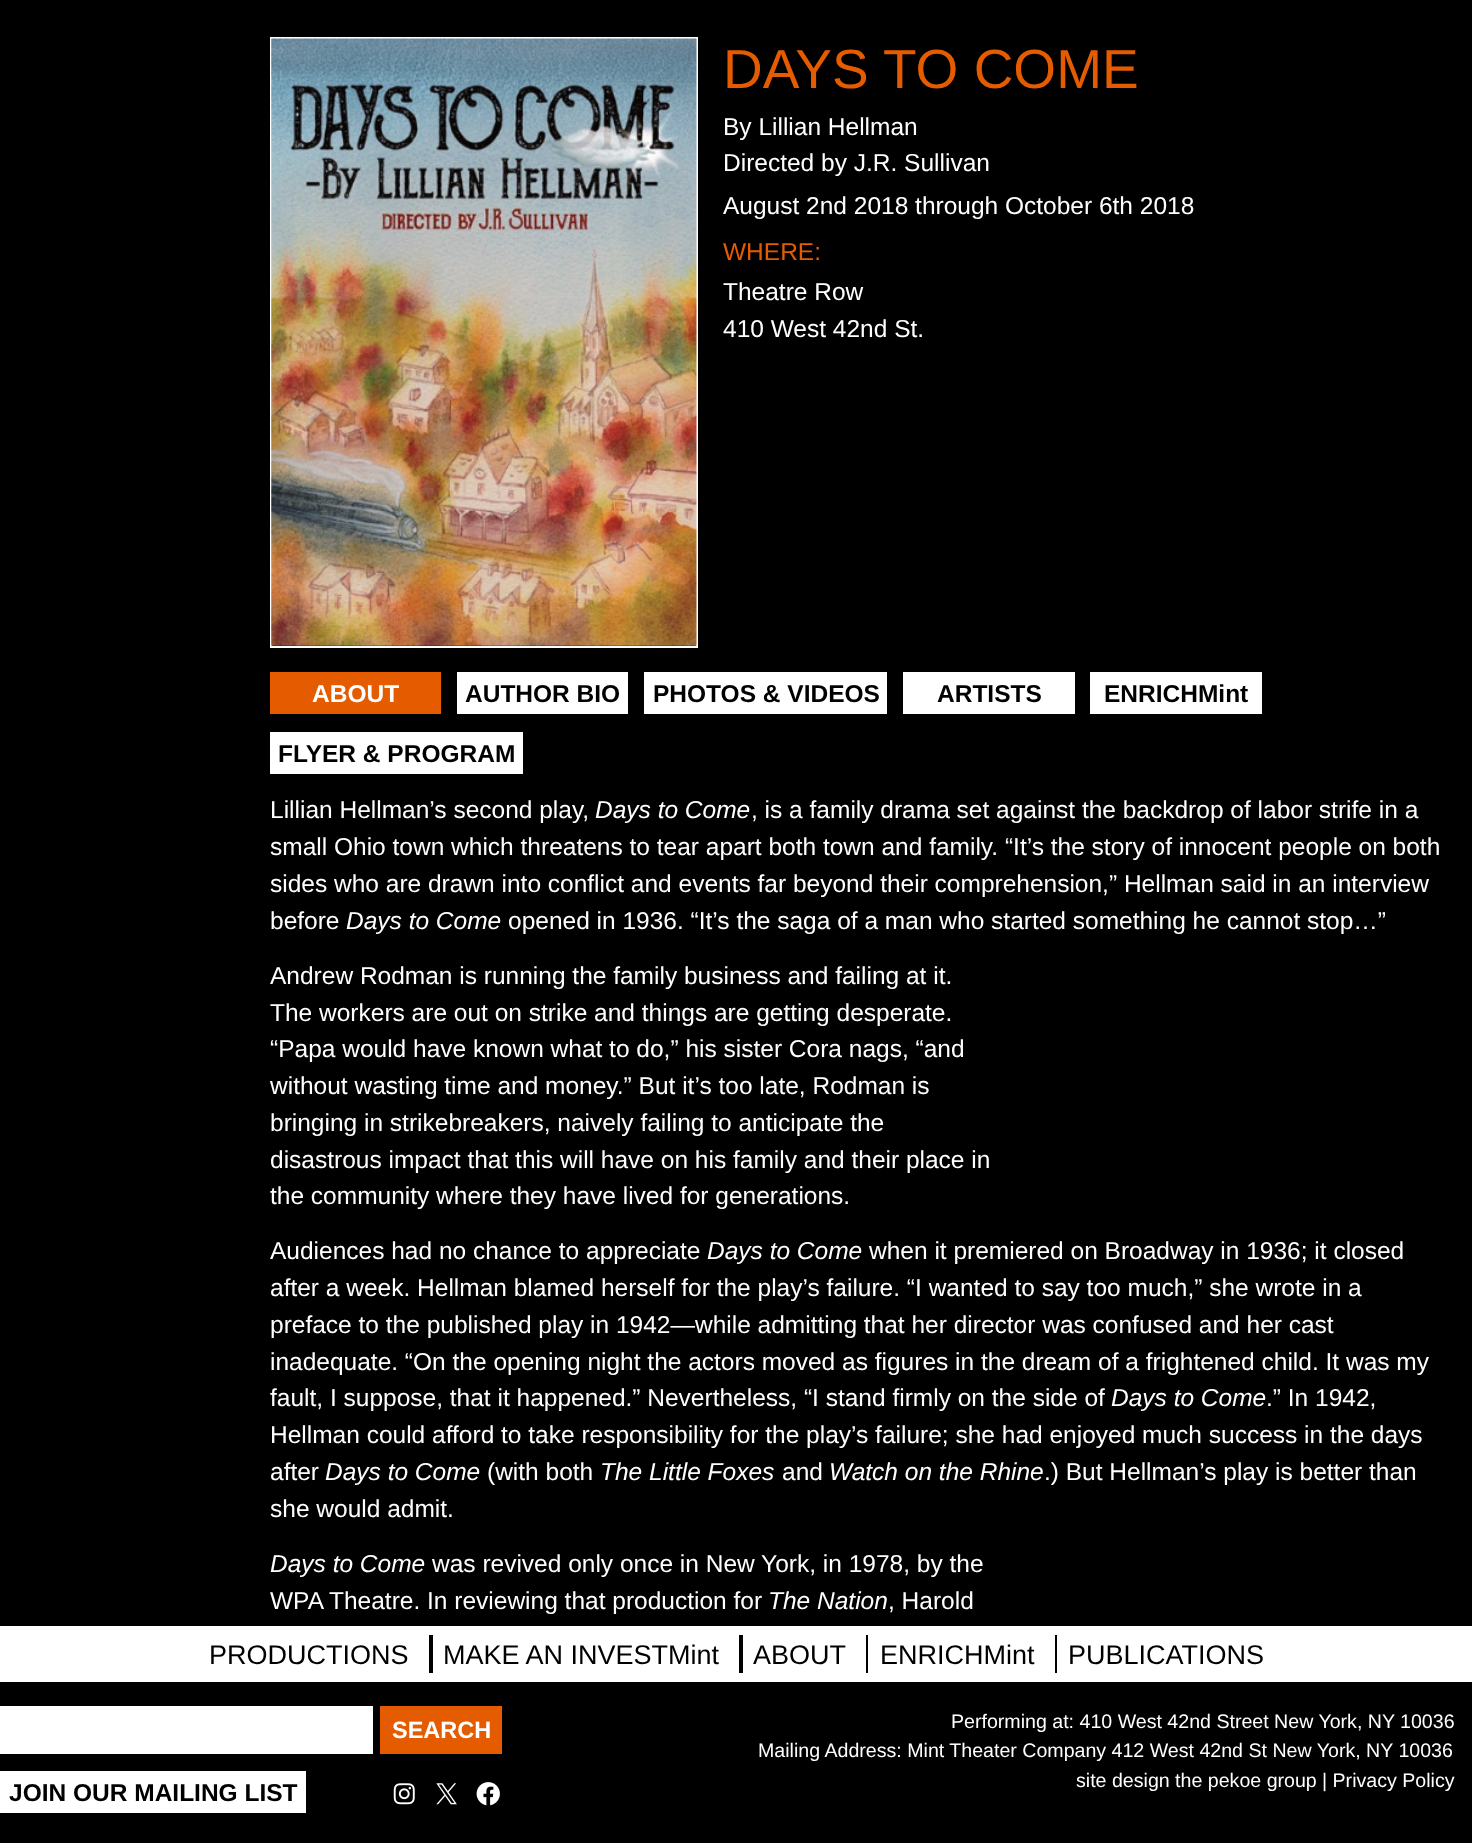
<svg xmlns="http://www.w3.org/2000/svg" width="1472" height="1843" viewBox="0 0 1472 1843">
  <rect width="100%" height="100%" fill="#000000"/>
  <rect x="271" y="38" width="426" height="609" fill="none" stroke="#ffffff" stroke-width="2"/>
  <image x="271" y="38" width="426" height="608" href="img1.png"/>
  <text x="723" y="88" font-family="Liberation Sans" font-size="55" fill="#e55c00">DAYS TO COME</text>
  <text x="723" y="135" font-family="Liberation Sans" font-size="24.5" fill="#ffffff">By Lillian Hellman</text>
  <text x="723" y="171" font-family="Liberation Sans" font-size="24.5" fill="#ffffff">Directed by J.R. Sullivan</text>
  <text x="723" y="214" font-family="Liberation Sans" font-size="24.5" fill="#ffffff">August 2nd 2018 through October 6th 2018</text>
  <text x="723" y="260" font-family="Liberation Sans" font-size="24.5" fill="#e55c00">WHERE:</text>
  <text x="723" y="300" font-family="Liberation Sans" font-size="24.5" fill="#ffffff">Theatre Row</text>
  <text x="723" y="337" font-family="Liberation Sans" font-size="24.5" fill="#ffffff">410 West 42nd St.</text>
  <rect x="270" y="672" width="171" height="42" fill="#e55c00"/>
  <text x="312" y="702" font-family="Liberation Sans" font-size="24.5" font-weight="bold" fill="#ffffff">ABOUT</text>
  <rect x="457" y="672" width="171" height="42" fill="#ffffff"/>
  <text x="465" y="702" font-family="Liberation Sans" font-size="24.5" font-weight="bold" fill="#000000">AUTHOR BIO</text>
  <rect x="644" y="672" width="243" height="42" fill="#ffffff"/>
  <text x="653" y="702" font-family="Liberation Sans" font-size="24.5" font-weight="bold" fill="#000000">PHOTOS &amp; VIDEOS</text>
  <rect x="903" y="672" width="172" height="42" fill="#ffffff"/>
  <text x="937" y="702" font-family="Liberation Sans" font-size="24.5" font-weight="bold" fill="#000000">ARTISTS</text>
  <rect x="1090" y="672" width="172" height="42" fill="#ffffff"/>
  <text x="1104" y="702" font-family="Liberation Sans" font-size="24.5" font-weight="bold" fill="#000000">ENRICHMint</text>
  <rect x="270" y="732" width="253" height="42" fill="#ffffff"/>
  <text x="278" y="762" font-family="Liberation Sans" font-size="24.5" font-weight="bold" fill="#000000">FLYER &amp; PROGRAM</text>
  <text x="270" y="818" font-family="Liberation Sans" font-size="24.5" fill="#ffffff">Lillian Hellman’s second play,</text>
  <text x="595" y="818" font-family="Liberation Sans" font-size="24.5" font-style="italic" fill="#ffffff">Days to Come</text>
  <text x="751" y="818" font-family="Liberation Sans" font-size="24.5" fill="#ffffff">, is a family drama set against the backdrop of labor strife in a</text>
  <text x="270" y="855" font-family="Liberation Sans" font-size="24.5" fill="#ffffff">small Ohio town which threatens to tear apart both town and family. “It’s the story of innocent people on both</text>
  <text x="270" y="892" font-family="Liberation Sans" font-size="24.5" fill="#ffffff">sides who are drawn into conflict and events far beyond their comprehension,” Hellman said in an interview</text>
  <text x="270" y="929" font-family="Liberation Sans" font-size="24.5" fill="#ffffff">before</text>
  <text x="346" y="929" font-family="Liberation Sans" font-size="24.5" font-style="italic" fill="#ffffff">Days to Come</text>
  <text x="508" y="929" font-family="Liberation Sans" font-size="24.5" fill="#ffffff">opened in 1936. “It’s the saga of a man who started something he cannot stop…”</text>
  <text x="270" y="984" font-family="Liberation Sans" font-size="24.5" fill="#ffffff">Andrew Rodman is running the family business and failing at it.</text>
  <text x="270" y="1021" font-family="Liberation Sans" font-size="24.5" fill="#ffffff">The workers are out on strike and things are getting desperate.</text>
  <text x="270" y="1057" font-family="Liberation Sans" font-size="24.5" fill="#ffffff">“Papa would have known what to do,” his sister Cora nags, “and</text>
  <text x="270" y="1094" font-family="Liberation Sans" font-size="24.5" fill="#ffffff">without wasting time and money.” But it’s too late, Rodman is</text>
  <text x="270" y="1131" font-family="Liberation Sans" font-size="24.5" fill="#ffffff">bringing in strikebreakers, naively failing to anticipate the</text>
  <text x="270" y="1168" font-family="Liberation Sans" font-size="24.5" fill="#ffffff">disastrous impact that this will have on his family and their place in</text>
  <text x="270" y="1204" font-family="Liberation Sans" font-size="24.5" fill="#ffffff">the community where they have lived for generations.</text>
  <text x="270" y="1259" font-family="Liberation Sans" font-size="24.5" fill="#ffffff">Audiences had no chance to appreciate</text>
  <text x="707" y="1259" font-family="Liberation Sans" font-size="24.5" font-style="italic" fill="#ffffff">Days to Come</text>
  <text x="869" y="1259" font-family="Liberation Sans" font-size="24.5" fill="#ffffff">when it premiered on Broadway in 1936; it closed</text>
  <text x="270" y="1296" font-family="Liberation Sans" font-size="24.5" fill="#ffffff">after a week. Hellman blamed herself for the play’s failure. “I wanted to say too much,” she wrote in a</text>
  <text x="270" y="1333" font-family="Liberation Sans" font-size="24.5" fill="#ffffff">preface to the published play in 1942—while admitting that her director was confused and her cast</text>
  <text x="270" y="1370" font-family="Liberation Sans" font-size="24.5" fill="#ffffff">inadequate. “On the opening night the actors moved as figures in the dream of a frightened child. It was my</text>
  <text x="270" y="1406" font-family="Liberation Sans" font-size="24.5" fill="#ffffff">fault, I suppose, that it happened.” Nevertheless, “I stand firmly on the side of</text>
  <text x="1111" y="1406" font-family="Liberation Sans" font-size="24.5" font-style="italic" fill="#ffffff">Days to Come</text>
  <text x="1266" y="1406" font-family="Liberation Sans" font-size="24.5" fill="#ffffff">.” In 1942,</text>
  <text x="270" y="1443" font-family="Liberation Sans" font-size="24.5" fill="#ffffff">Hellman could afford to take responsibility for the play’s failure; she had enjoyed much success in the days</text>
  <text x="270" y="1480" font-family="Liberation Sans" font-size="24.5" fill="#ffffff">after</text>
  <text x="325" y="1480" font-family="Liberation Sans" font-size="24.5" font-style="italic" fill="#ffffff">Days to Come</text>
  <text x="487" y="1480" font-family="Liberation Sans" font-size="24.5" fill="#ffffff">(with both</text>
  <text x="600" y="1480" font-family="Liberation Sans" font-size="24.5" font-style="italic" fill="#ffffff">The Little Foxes</text>
  <text x="782" y="1480" font-family="Liberation Sans" font-size="24.5" fill="#ffffff">and</text>
  <text x="829" y="1480" font-family="Liberation Sans" font-size="24.5" font-style="italic" fill="#ffffff">Watch on the Rhine</text>
  <text x="1044" y="1480" font-family="Liberation Sans" font-size="24.5" fill="#ffffff">.) But Hellman’s play is better than</text>
  <text x="270" y="1517" font-family="Liberation Sans" font-size="24.5" fill="#ffffff">she would admit.</text>
  <text x="270" y="1572" font-family="Liberation Sans" font-size="24.5" font-style="italic" fill="#ffffff">Days to Come</text>
  <text x="432" y="1572" font-family="Liberation Sans" font-size="24.5" fill="#ffffff">was revived only once in New York, in 1978, by the</text>
  <text x="270" y="1609" font-family="Liberation Sans" font-size="24.5" fill="#ffffff">WPA Theatre. In reviewing that production for</text>
  <text x="768" y="1609" font-family="Liberation Sans" font-size="24.5" font-style="italic" fill="#ffffff">The Nation</text>
  <text x="888" y="1609" font-family="Liberation Sans" font-size="24.5" fill="#ffffff">, Harold</text>
  <rect x="0" y="1626" width="1472" height="56" fill="#ffffff"/>
  <text x="209" y="1664" font-family="Liberation Sans" font-size="27" fill="#000000">PRODUCTIONS</text>
  <rect x="429" y="1635" width="4" height="38" fill="#000000"/>
  <text x="443" y="1664" font-family="Liberation Sans" font-size="27" fill="#000000">MAKE AN INVESTMint</text>
  <rect x="739" y="1635" width="4" height="38" fill="#000000"/>
  <text x="753" y="1664" font-family="Liberation Sans" font-size="27" fill="#000000">ABOUT</text>
  <rect x="866" y="1635" width="2" height="38" fill="#000000"/>
  <text x="880" y="1664" font-family="Liberation Sans" font-size="27" fill="#000000">ENRICHMint</text>
  <rect x="1055" y="1635" width="2" height="38" fill="#000000"/>
  <text x="1068" y="1664" font-family="Liberation Sans" font-size="27" fill="#000000">PUBLICATIONS</text>
  <rect x="0" y="1706" width="373" height="48" fill="#ffffff"/>
  <rect x="380" y="1706" width="122" height="48" fill="#e55c00"/>
  <text x="392" y="1738" font-family="Liberation Sans" font-size="23.5" font-weight="bold" fill="#ffffff">SEARCH</text>
  <rect x="0" y="1771" width="306" height="42" fill="#ffffff"/>
  <text x="9" y="1801" font-family="Liberation Sans" font-size="24.5" font-weight="bold" fill="#000000">JOIN OUR MAILING LIST</text>
  <image x="393" y="1783" width="22" height="22" href="img2.png"/>
  <image x="436" y="1783" width="21" height="22" href="img3.png"/>
  <image x="476" y="1782" width="24" height="24" href="img4.png"/>
  <text x="951" y="1728" font-family="Liberation Sans" font-size="19.6" fill="#ffffff">Performing at: 410 West 42nd Street New York, NY 10036</text>
  <text x="758" y="1757" font-family="Liberation Sans" font-size="19.6" fill="#ffffff">Mailing Address: Mint Theater Company 412 West 42nd St New York, NY 10036</text>
  <text x="1076" y="1787" font-family="Liberation Sans" font-size="19.6" fill="#ffffff">site design the pekoe group</text>
  <text x="1322" y="1787" font-family="Liberation Sans" font-size="19.6" fill="#ffffff">| Privacy Policy</text>
</svg>
